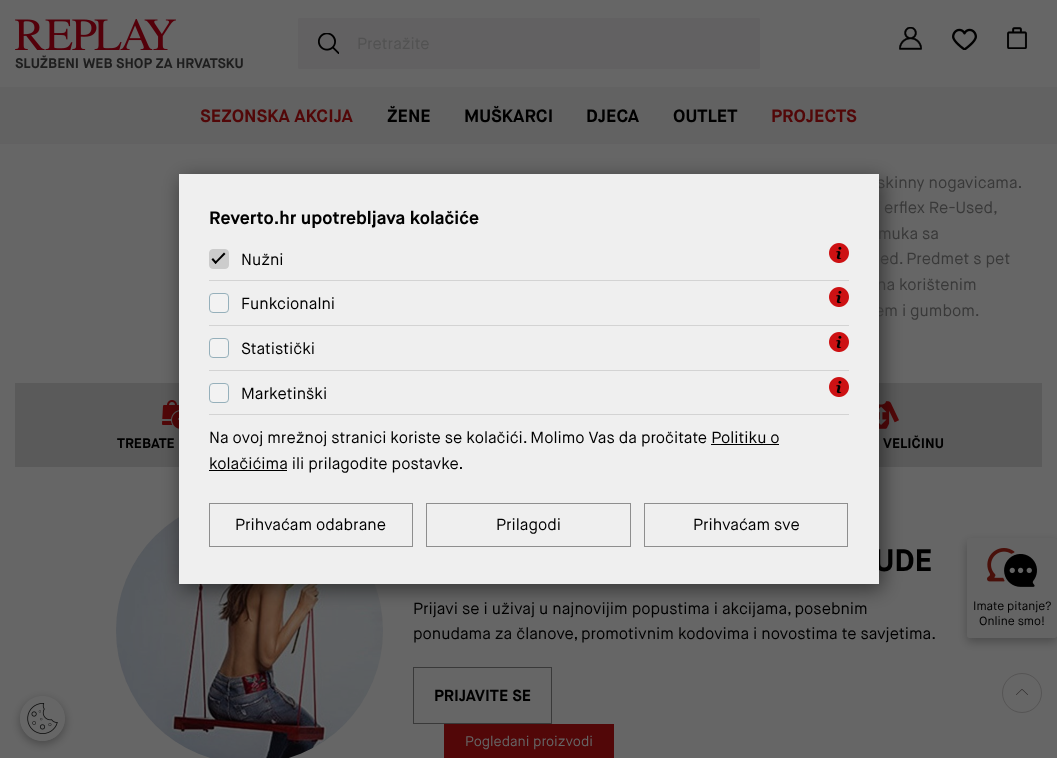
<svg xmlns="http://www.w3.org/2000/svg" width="1057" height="758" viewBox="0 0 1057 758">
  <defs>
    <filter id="blur1" x="-50%" y="-200%" width="200%" height="500%"><feGaussianBlur stdDeviation="10"/></filter>
    <filter id="blur2" x="-50%" y="-200%" width="200%" height="500%"><feGaussianBlur stdDeviation="5"/></filter>
    <clipPath id="clip1"><path d="M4 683H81V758H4ZM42.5 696C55 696 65 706 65 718.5C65 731 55 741 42.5 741C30 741 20 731 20 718.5C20 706 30 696 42.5 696Z" clip-rule="evenodd"/></clipPath>
  </defs>
  <rect width="100%" height="100%" fill="#666666"/>
  <rect x="0" y="143" width="1057" height="1" fill="#626162"/>
  <rect x="298" y="18" width="462" height="51" rx="2" fill="#626162"/>
  <image x="318" y="33" width="21" height="21" href="img1.png"/>
  <text x="357" y="49" font-family="Maison Neue" font-size="16" fill="#525252">Pretražite</text>
  <image x="899" y="27" width="23" height="23" href="img2.png"/>
  <image x="952" y="28" width="25" height="22" href="img3.png"/>
  <image x="1007" y="27" width="20" height="22" href="img4.png"/>
  <image x="15" y="19" width="161" height="31" href="img5.png"/>
  <text x="15" y="68" font-family="Maison Neue" font-size="14" font-weight="bold" fill="#1e1e1e">SLUŽBENI WEB SHOP ZA HRVATSKU</text>
  <rect x="0" y="87" width="1057" height="56" fill="#626262"/>
  <text x="200" y="122" font-family="Maison Neue" font-size="18" font-weight="bold" fill="#520708">SEZONSKA AKCIJA</text>
  <text x="387" y="122" font-family="Maison Neue" font-size="18" font-weight="bold" fill="#000000">ŽENE</text>
  <text x="464" y="122" font-family="Maison Neue" font-size="18" font-weight="bold" fill="#000000">MUŠKARCI</text>
  <text x="586" y="122" font-family="Maison Neue" font-size="18" font-weight="bold" fill="#000000">DJECA</text>
  <text x="673" y="122" font-family="Maison Neue" font-size="18" font-weight="bold" fill="#000000">OUTLET</text>
  <text x="771" y="122" font-family="Maison Neue" font-size="18" font-weight="bold" fill="#520708">PROJECTS</text>
  <rect x="15" y="383" width="1027" height="84" fill="#5a5a5a"/>
  <image x="162" y="400" width="17" height="29" href="img7.png"/>
  <image x="879" y="401" width="20" height="28" href="img8.png"/>
  <image x="116" y="517" width="267" height="241" href="img9.png"/>
  <rect x="182" y="179" width="700" height="410" fill="#000000" fill-opacity="0.5" filter="url(#blur1)"/>
  <text x="877" y="188" font-family="Maison Neue" font-size="16" fill="#393939">skinny nogavicama.</text>
  <text x="877" y="290" font-family="Maison Neue" font-size="16" fill="#393939">na korištenim</text>
  <text x="875" y="316" font-family="Maison Neue" font-size="16" fill="#393939">em i gumbom.</text>
  <text x="874" y="571" font-family="Maison Neue" font-size="31" font-weight="bold" fill="#000000">UDE</text>
  <rect x="179" y="174" width="700" height="410" fill="#efefef"/>
  <text x="209" y="224" font-family="Maison Neue" font-size="18" font-weight="bold" fill="#000000">Reverto.hr upotrebljava kolačiće</text>
  <rect x="209.5" y="249.5" width="19" height="19" rx="3.5" fill="#cccccc" stroke="#cccccc"/>
  <path d="M224 252.5L225.5 254L215.5 264L214.5 262.5Z" fill="#000000"/>
  <path d="M213 258L217 262.5L215.5 264L211.5 259.5Z" fill="#000000"/>
  <text x="241" y="265" font-family="Maison Neue" font-size="16" fill="#000000">Nužni</text>
  <image x="829" y="243" width="20" height="20" href="img6.png"/>
  <rect x="209" y="280" width="640" height="1" fill="#d3d3d3"/>
  <rect x="209.5" y="293.5" width="19" height="19" rx="3.5" fill="#f2f2f2" stroke="#96b0bb"/>
  <text x="241" y="309" font-family="Maison Neue" font-size="16" fill="#000000">Funkcionalni</text>
  <image x="829" y="287" width="20" height="20" href="img6.png"/>
  <rect x="209" y="325" width="640" height="1" fill="#d3d3d3"/>
  <rect x="209.5" y="338.5" width="19" height="19" rx="3.5" fill="#f2f2f2" stroke="#96b0bb"/>
  <text x="241" y="354" font-family="Maison Neue" font-size="16" fill="#000000">Statistički</text>
  <image x="829" y="332" width="20" height="20" href="img6.png"/>
  <rect x="209" y="370" width="640" height="1" fill="#d3d3d3"/>
  <rect x="209.5" y="383.5" width="19" height="19" rx="3.5" fill="#f2f2f2" stroke="#96b0bb"/>
  <text x="241" y="399" font-family="Maison Neue" font-size="16" fill="#000000">Marketinški</text>
  <image x="829" y="377" width="20" height="20" href="img6.png"/>
  <rect x="209" y="414" width="640" height="1" fill="#d3d3d3"/>
  <text x="209" y="443" font-family="Maison Neue" font-size="16" fill="#000000">Na ovoj mrežnoj stranici koriste se kolačići. Molimo Vas da pročitate Politiku o</text>
  <rect x="209" y="470" width="78" height="1" fill="#000000"/>
  <text x="209" y="469" font-family="Maison Neue" font-size="16" fill="#000000">kolačićima ili prilagodite postavke.</text>
  <rect x="711" y="444" width="68" height="1" fill="#000000"/>
  <rect x="209.5" y="503.5" width="203" height="43" fill="none" stroke="#8e8e8e"/>
  <text x="235" y="530" font-family="Maison Neue" font-size="16" fill="#000000">Prihvaćam odabrane</text>
  <rect x="426.5" y="503.5" width="204" height="43" fill="none" stroke="#8e8e8e"/>
  <text x="496" y="530" font-family="Maison Neue" font-size="16" fill="#000000">Prilagodi</text>
  <rect x="644.5" y="503.5" width="203" height="43" fill="none" stroke="#8e8e8e"/>
  <text x="693" y="530" font-family="Maison Neue" font-size="16" fill="#000000">Prihvaćam sve</text>
  <text x="884" y="213" font-family="Maison Neue" font-size="16" fill="#393939">erflex Re-Used,</text>
  <text x="878" y="239" font-family="Maison Neue" font-size="16" fill="#393939">muka sa</text>
  <text x="880" y="264" font-family="Maison Neue" font-size="16" fill="#393939">ed. Predmet s pet</text>
  <text x="117" y="448" font-family="Maison Neue" font-size="14" font-weight="bold" fill="#000000">TREBATE</text>
  <text x="883" y="448" font-family="Maison Neue" font-size="14" font-weight="bold" fill="#000000">VELIČINU</text>
  <text x="413" y="614" font-family="Maison Neue" font-size="16" fill="#000000">Prijavi se i uživaj u najnovijim popustima i akcijama, posebnim</text>
  <text x="413" y="639" font-family="Maison Neue" font-size="16" fill="#000000">ponudama za članove, promotivnim kodovima i novostima te savjetima.</text>
  <rect x="413.5" y="667.5" width="138" height="56" fill="none" stroke="#393939"/>
  <text x="434" y="701" font-family="Maison Neue" font-size="16" font-weight="bold" fill="#000000">PRIJAVITE SE</text>
  <rect x="967" y="542" width="90" height="100" rx="2" fill="#000000" fill-opacity="0.25" filter="url(#blur2)"/>
  <rect x="967" y="538" width="90" height="100" rx="2" fill="#646464"/>
  <image x="987" y="548" width="50" height="39" href="img10.png"/>
  <text x="973" y="610" font-family="Maison Neue" font-size="12" fill="#000000">Imate pitanje?</text>
  <text x="979" y="625" font-family="Maison Neue" font-size="12" fill="#000000">Online smo!</text>
  <g clip-path="url(#clip1)">
    <rect x="20" y="699" width="45" height="45" rx="22.5" fill="#000000" fill-opacity="0.3" filter="url(#blur2)"/>
  </g>
  <image x="20" y="703" width="45" height="38" href="img11.png"/>
  <rect x="444" y="724" width="170" height="34" fill="#520708"/>
  <text x="465" y="746" font-family="Maison Neue" font-size="14" fill="#666666">Pogledani proizvodi</text>
  <circle cx="1022" cy="693" r="19.5" fill="none" stroke="#565555"/>
  <image x="1016" y="689" width="12" height="6" href="img12.png"/>
</svg>
